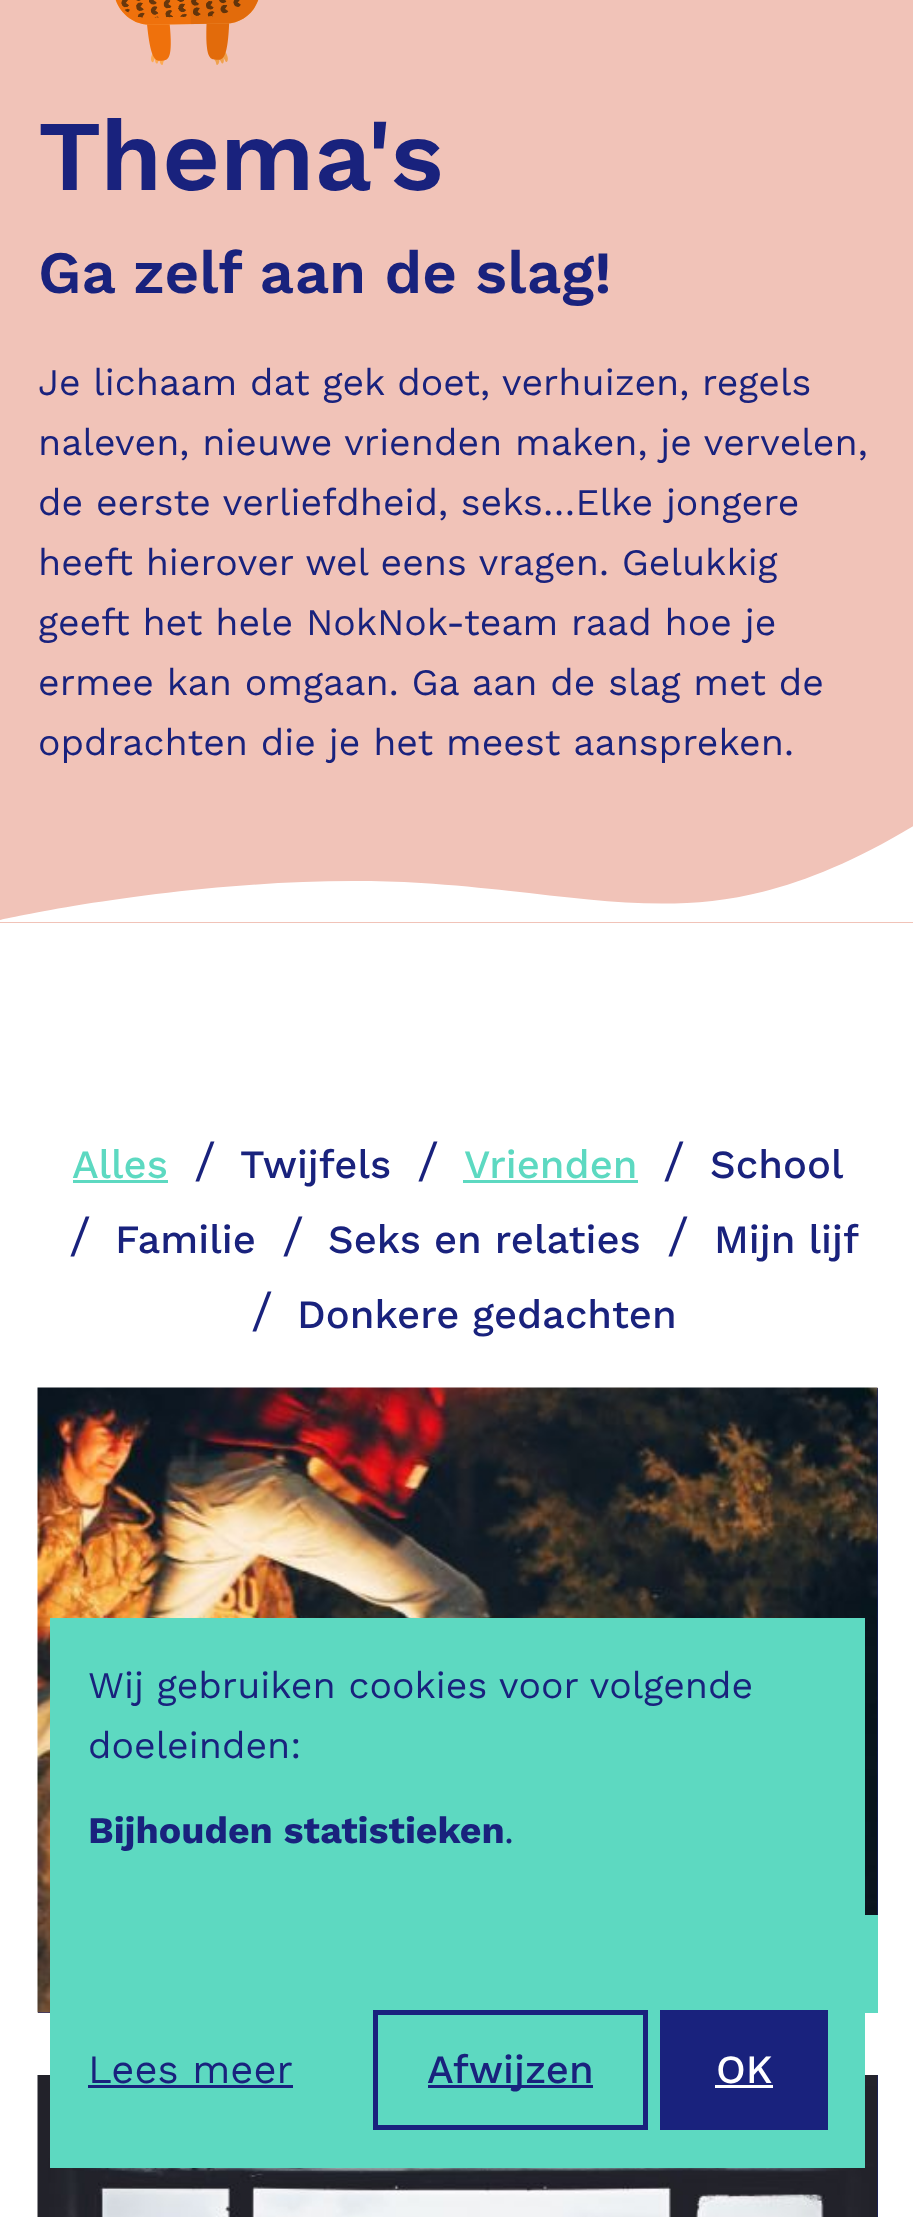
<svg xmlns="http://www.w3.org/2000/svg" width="913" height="2217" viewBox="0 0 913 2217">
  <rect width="100%" height="100%" fill="#ffffff"/>
  <rect x="0" y="0" width="913" height="923" fill="#f1c3b8"/>
  <image x="115" y="0" width="144" height="65" href="img1.png"/>
  <text x="38" y="190" font-family="Work Sans" font-size="100" font-weight="600" fill="#19227d">Thema's</text>
  <text x="38" y="293" font-family="Work Sans" font-size="60" font-weight="600" fill="#19227d">Ga zelf aan de slag!</text>
  <text x="38" y="395" font-family="Work Sans" font-size="37.5" fill="#19227d">Je lichaam dat gek doet, verhuizen, regels</text>
  <text x="38" y="455" font-family="Work Sans" font-size="37.5" fill="#19227d">naleven, nieuwe vrienden maken, je vervelen,</text>
  <text x="38" y="515" font-family="Work Sans" font-size="37.5" fill="#19227d">de eerste verliefdheid, seks…Elke jongere</text>
  <text x="38" y="575" font-family="Work Sans" font-size="37.5" fill="#19227d">heeft hierover wel eens vragen. Gelukkig</text>
  <text x="38" y="635" font-family="Work Sans" font-size="37.5" fill="#19227d">geeft het hele NokNok-team raad hoe je</text>
  <text x="38" y="695" font-family="Work Sans" font-size="37.5" fill="#19227d">ermee kan omgaan. Ga aan de slag met de</text>
  <text x="38" y="755" font-family="Work Sans" font-size="37.5" fill="#19227d">opdrachten die je het meest aanspreken.</text>
  <path d="M421 883C215 871 0 920 0 920V922H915V825C717 944 626 896 421 883Z" fill="#ffffff"/>
  <text x="72" y="1178" font-family="Work Sans" font-size="40" font-weight="500" fill="#5dd9c1">Alles</text>
  <rect x="73" y="1180" width="95" height="3" fill="#5dd9c1"/>
  <text x="194" y="1178" font-family="Work Sans" font-size="50" fill="#19227d">/</text>
  <text x="240" y="1178" font-family="Work Sans" font-size="40" font-weight="500" fill="#19227d">Twijfels</text>
  <text x="417" y="1178" font-family="Work Sans" font-size="50" fill="#19227d">/</text>
  <text x="464" y="1178" font-family="Work Sans" font-size="40" font-weight="500" fill="#5dd9c1">Vrienden</text>
  <rect x="463" y="1180" width="175" height="3" fill="#5dd9c1"/>
  <text x="663" y="1178" font-family="Work Sans" font-size="50" fill="#19227d">/</text>
  <text x="710" y="1178" font-family="Work Sans" font-size="40" font-weight="500" fill="#19227d">School</text>
  <text x="69" y="1253" font-family="Work Sans" font-size="50" fill="#19227d">/</text>
  <text x="115" y="1253" font-family="Work Sans" font-size="40" font-weight="500" fill="#19227d">Familie</text>
  <text x="282" y="1253" font-family="Work Sans" font-size="50" fill="#19227d">/</text>
  <text x="328" y="1253" font-family="Work Sans" font-size="40" font-weight="500" fill="#19227d">Seks en relaties</text>
  <text x="667" y="1253" font-family="Work Sans" font-size="50" fill="#19227d">/</text>
  <text x="714" y="1253" font-family="Work Sans" font-size="40" font-weight="500" fill="#19227d">Mijn lijf</text>
  <text x="251" y="1328" font-family="Work Sans" font-size="50" fill="#19227d">/</text>
  <text x="297" y="1328" font-family="Work Sans" font-size="40" font-weight="500" fill="#19227d">Donkere gedachten</text>
  <rect x="38" y="1388" width="840" height="625" fill="#19227d"/>
  <image x="37" y="1387" width="841" height="626" href="img2.png"/>
  <rect x="865" y="1915" width="13" height="98" fill="#5dd9c1"/>
  <rect x="877" y="2075" width="1" height="142" fill="#19227d"/>
  <image x="37" y="2075" width="841" height="142" href="img3.png"/>
  <rect x="50" y="1618" width="815" height="550" fill="#5dd9c1"/>
  <text x="88" y="1698" font-family="Work Sans" font-size="37.5" fill="#19227d">Wij gebruiken cookies voor volgende</text>
  <text x="88" y="1758" font-family="Work Sans" font-size="37.5" fill="#19227d">doeleinden:</text>
  <text x="88" y="1843" font-family="Work Sans" font-size="37.5" font-weight="bold" fill="#19227d">Bijhouden statistieken</text>
  <text x="504" y="1843" font-family="Work Sans" font-size="37.5" fill="#19227d">.</text>
  <text x="88" y="2083" font-family="Work Sans" font-size="40" fill="#19227d">Lees meer</text>
  <rect x="88" y="2085" width="205" height="3" fill="#19227d"/>
  <rect x="375.5" y="2012.5" width="270" height="115" fill="none" stroke="#19227d" stroke-width="5"/>
  <rect x="428" y="2085" width="165" height="3" fill="#19227d"/>
  <text x="427" y="2083" font-family="Work Sans" font-size="40" font-weight="500" fill="#19227d">Afwijzen</text>
  <rect x="660" y="2010" width="168" height="120" fill="#19227d"/>
  <text x="716" y="2083" font-family="Work Sans" font-size="40" font-weight="500" fill="#ffffff">OK</text>
  <rect x="715" y="2085" width="58" height="3" fill="#ffffff"/>
</svg>
